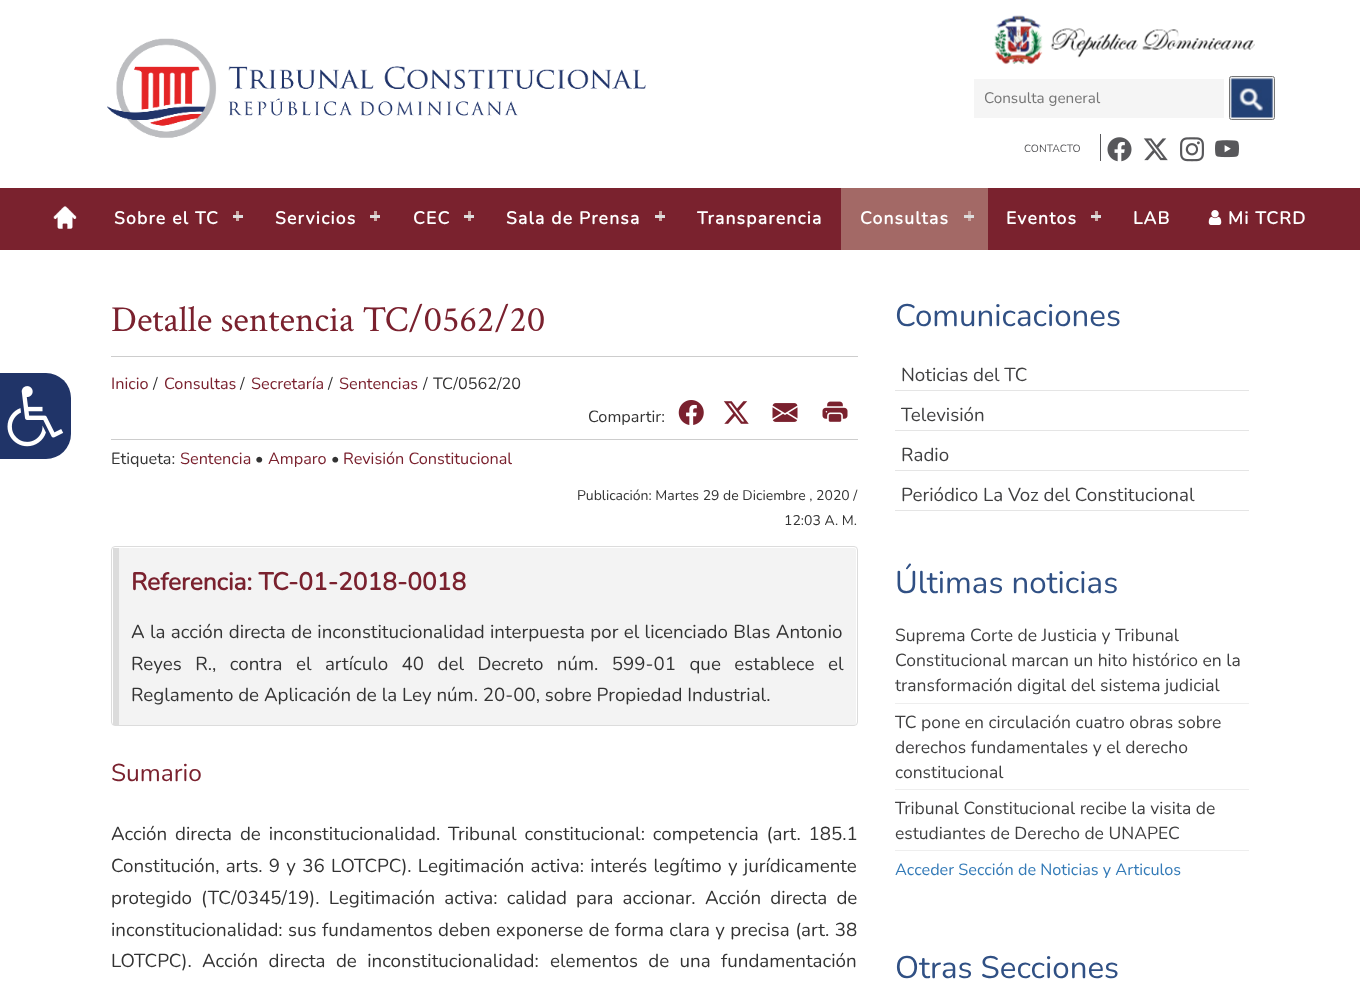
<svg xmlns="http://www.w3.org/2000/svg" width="1360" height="988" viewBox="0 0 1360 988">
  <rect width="100%" height="100%" fill="#ffffff"/>
  <image x="107" y="38" width="539" height="100" href="img1.png"/>
  <image x="994" y="15" width="261" height="50" href="img2.png"/>
  <rect x="974" y="79" width="250" height="39" fill="#f5f5f5"/>
  <text x="984" y="103" font-family="Nunito" font-size="15.25" font-weight="200" fill="#757575">Consulta general</text>
  <rect x="1229.5" y="76.5" width="45" height="43" rx="2" fill="#efefef" stroke="#767676"/>
  <image x="1230" y="78" width="43" height="40" href="img3.png"/>
  <rect x="1100" y="134" width="1" height="27" fill="#58585b"/>
  <text x="1024" y="152" font-family="Nunito" font-size="10.5" font-weight="200" fill="#58585b">CONTACTO</text>
  <image x="1107" y="137" width="25" height="25" href="img4.png"/>
  <image x="1143" y="138" width="25" height="23" href="img5.png"/>
  <image x="1180" y="137" width="24" height="25" href="img6.png"/>
  <image x="1215" y="140" width="24" height="18" href="img7.png"/>
  <rect x="0" y="188" width="1360" height="62" fill="#7a222e"/>
  <image x="53" y="206" width="24" height="23" href="img8.png"/>
  <text x="114" y="224" font-family="Nunito" font-size="17.5" font-weight="bold" letter-spacing="1.25" fill="#ffffff">Sobre el TC</text>
  <rect x="236" y="211" width="3" height="10" fill="#cba9a4"/>
  <rect x="233" y="215" width="10" height="3" fill="#dddddd"/>
  <text x="275" y="224" font-family="Nunito" font-size="17.5" font-weight="bold" letter-spacing="1.25" fill="#ffffff">Servicios</text>
  <rect x="374" y="211" width="3" height="10" fill="#cba9a4"/>
  <rect x="370" y="215" width="10" height="3" fill="#dddddd"/>
  <text x="413" y="224" font-family="Nunito" font-size="17.5" font-weight="bold" letter-spacing="1.25" fill="#ffffff">CEC</text>
  <rect x="468" y="211" width="3" height="10" fill="#cba9a4"/>
  <rect x="464" y="215" width="10" height="3" fill="#dddddd"/>
  <text x="506" y="224" font-family="Nunito" font-size="17.5" font-weight="bold" letter-spacing="1.25" fill="#ffffff">Sala de Prensa</text>
  <rect x="659" y="211" width="3" height="10" fill="#cba9a4"/>
  <rect x="655" y="215" width="10" height="3" fill="#dddddd"/>
  <text x="697" y="224" font-family="Nunito" font-size="17.5" font-weight="bold" letter-spacing="1.25" fill="#ffffff">Transparencia</text>
  <rect x="841" y="188" width="147" height="62" fill="#a36966"/>
  <text x="860" y="224" font-family="Nunito" font-size="17.5" font-weight="bold" letter-spacing="1.25" fill="#ffffff">Consultas</text>
  <rect x="968" y="211" width="3" height="10" fill="#cba9a4"/>
  <rect x="964" y="215" width="10" height="3" fill="#dddddd"/>
  <text x="1006" y="224" font-family="Nunito" font-size="17.5" font-weight="bold" letter-spacing="1.25" fill="#ffffff">Eventos</text>
  <rect x="1095" y="211" width="3" height="10" fill="#cba9a4"/>
  <rect x="1091" y="215" width="10" height="3" fill="#dddddd"/>
  <text x="1133" y="224" font-family="Nunito" font-size="17.5" font-weight="bold" letter-spacing="1.25" fill="#ffffff">LAB</text>
  <image x="1208" y="210" width="14" height="15" href="img9.png"/>
  <text x="1228" y="224" font-family="Nunito" font-size="17.5" font-weight="bold" letter-spacing="1.25" fill="#ffffff">Mi TCRD</text>
  <rect x="-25" y="373" width="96" height="86" rx="25" fill="#203468"/>
  <image x="7" y="386" width="57" height="61" href="img10.png"/>
  <text x="111" y="331" font-family="Crimson Text" font-size="36.75" fill="#7a212e">Detalle sentencia TC/0562/20</text>
  <rect x="111" y="356" width="747" height="1" fill="#cdcdcd"/>
  <rect x="111" y="439" width="747" height="1" fill="#cdcdcd"/>
  <text x="111" y="389" font-family="Nunito" font-size="16.25" font-weight="200" fill="#7a212e">Inicio</text>
  <text x="153" y="389" font-family="Nunito" font-size="16.25" font-weight="200" fill="#333333">/</text>
  <text x="164" y="389" font-family="Nunito" font-size="16.25" font-weight="200" fill="#7a212e">Consultas</text>
  <text x="240" y="389" font-family="Nunito" font-size="16.25" font-weight="200" fill="#333333">/</text>
  <text x="251" y="389" font-family="Nunito" font-size="16.25" font-weight="200" fill="#7a212e">Secretaría</text>
  <text x="328" y="389" font-family="Nunito" font-size="16.25" font-weight="200" fill="#333333">/</text>
  <text x="339" y="389" font-family="Nunito" font-size="16.25" font-weight="200" fill="#7a212e">Sentencias</text>
  <text x="423" y="389" font-family="Nunito" font-size="16.25" font-weight="200" fill="#333333">/</text>
  <text x="433" y="389" font-family="Nunito" font-size="16.25" font-weight="200" fill="#333333">TC/0562/20</text>
  <text x="588" y="422" font-family="Nunito" font-size="16.25" font-weight="200" fill="#333333">Compartir:</text>
  <image x="678" y="400" width="26" height="25" href="img11.png"/>
  <image x="723" y="401" width="26" height="23" href="img12.png"/>
  <image x="772" y="403" width="26" height="19" href="img13.png"/>
  <image x="822" y="401" width="26" height="21" href="img14.png"/>
  <text x="111" y="464" font-family="Nunito" font-size="16.25" font-weight="200" fill="#333333">Etiqueta:</text>
  <text x="180" y="464" font-family="Nunito" font-size="16.25" font-weight="200" fill="#7a212e">Sentencia</text>
  <text x="255" y="464" font-family="Nunito" font-size="16.25" font-weight="200" fill="#333333">•</text>
  <text x="268" y="464" font-family="Nunito" font-size="16.25" font-weight="200" fill="#7a212e">Amparo</text>
  <text x="331" y="464" font-family="Nunito" font-size="16.25" font-weight="200" fill="#333333">•</text>
  <text x="343" y="464" font-family="Nunito" font-size="16.25" font-weight="200" fill="#7a212e">Revisión Constitucional</text>
  <text x="577" y="500" font-family="Nunito" font-size="14" font-weight="200" fill="#333333">Publicación: Martes 29 de Diciembre , 2020 /</text>
  <text x="784" y="525" font-family="Nunito" font-size="14" font-weight="200" fill="#333333">12:03 A. M.</text>
  <path d="M119 548H854C855 548 856 549 856 550V723C856 724 855 725 854 725H119Z" fill="#f3f3f3"/>
  <rect x="111.5" y="546.5" width="746" height="179" rx="3.5" fill="none" stroke="#dcdcdc"/>
  <rect x="113" y="548" width="6" height="177" fill="#dcdcdc"/>
  <text x="131" y="590" font-family="Nunito" font-size="24.5" font-weight="bold" fill="#7a212e">Referencia: TC-01-2018-0018</text>
  <text x="131" y="638" word-spacing="0.5" font-family="Nunito" font-size="18.75" font-weight="200" fill="#333333">A la acción directa de inconstitucionalidad interpuesta por el licenciado Blas Antonio</text>
  <text x="131" y="670" word-spacing="8.6" font-family="Nunito" font-size="18.75" font-weight="200" fill="#333333">Reyes R., contra el artículo 40 del Decreto núm. 599-01 que establece el</text>
  <text x="131" y="701" font-family="Nunito" font-size="18.75" font-weight="200" fill="#333333">Reglamento de Aplicación de la Ley núm. 20-00, sobre Propiedad Industrial.</text>
  <text x="111" y="781" font-family="Nunito" font-size="24.5" font-weight="200" fill="#7a212e">Sumario</text>
  <text x="111" y="840" word-spacing="3" font-family="Nunito" font-size="18.75" font-weight="200" fill="#333333">Acción directa de inconstitucionalidad. Tribunal constitucional: competencia (art. 185.1</text>
  <text x="111" y="872" word-spacing="1.4" font-family="Nunito" font-size="18.75" font-weight="200" fill="#333333">Constitución, arts. 9 y 36 LOTCPC). Legitimación activa: interés legítimo y jurídicamente</text>
  <text x="111" y="904" word-spacing="4.25" font-family="Nunito" font-size="18.75" font-weight="200" fill="#333333">protegido (TC/0345/19). Legitimación activa: calidad para accionar.</text>
  <text x="705" y="904" word-spacing="4.25" font-family="Nunito" font-size="18.75" font-weight="200" fill="#333333">Acción directa de</text>
  <text x="111" y="936" font-family="Nunito" font-size="18.75" font-weight="200" fill="#333333">inconstitucionalidad:</text>
  <text x="288" y="936" word-spacing="0.5" font-family="Nunito" font-size="18.75" font-weight="200" fill="#333333">sus fundamentos deben exponerse de forma clara y precisa (art. 38</text>
  <text x="111" y="967" font-family="Nunito" font-size="18.75" font-weight="200" fill="#333333">LOTCPC).</text>
  <text x="202" y="967" word-spacing="5.5" font-family="Nunito" font-size="18.75" font-weight="200" fill="#333333">Acción directa de inconstitucionalidad:</text>
  <text x="550" y="967" word-spacing="5.5" font-family="Nunito" font-size="18.75" font-weight="200" fill="#333333">elementos de una fundamentación</text>
  <text x="895" y="326" font-family="Nunito" font-size="31.25" font-weight="200" fill="#305084">Comunicaciones</text>
  <rect x="895" y="390" width="354" height="1" fill="#e5e5e5"/>
  <text x="901" y="381" font-family="Nunito" font-size="18.75" font-weight="200" fill="#3f3f40">Noticias del TC</text>
  <rect x="895" y="430" width="354" height="1" fill="#e5e5e5"/>
  <text x="901" y="421" font-family="Nunito" font-size="18.75" font-weight="200" fill="#3f3f40">Televisión</text>
  <rect x="895" y="470" width="354" height="1" fill="#e5e5e5"/>
  <text x="901" y="461" font-family="Nunito" font-size="18.75" font-weight="200" fill="#3f3f40">Radio</text>
  <rect x="895" y="510" width="354" height="1" fill="#e5e5e5"/>
  <text x="901" y="501" font-family="Nunito" font-size="18.75" font-weight="200" fill="#3f3f40">Periódico La Voz del Constitucional</text>
  <text x="895" y="593" font-family="Nunito" font-size="31.25" font-weight="200" fill="#305084">Últimas noticias</text>
  <rect x="895" y="703" width="354" height="1" fill="#eeeeee"/>
  <text x="895" y="641" font-family="Nunito" font-size="17.5" font-weight="200" fill="#3f3f40">Suprema Corte de Justicia y Tribunal</text>
  <text x="895" y="666" font-family="Nunito" font-size="17.5" font-weight="200" fill="#3f3f40">Constitucional marcan un hito histórico en la</text>
  <text x="895" y="691" font-family="Nunito" font-size="17.5" font-weight="200" fill="#3f3f40">transformación digital del sistema judicial</text>
  <rect x="895" y="789" width="354" height="1" fill="#eeeeee"/>
  <text x="895" y="728" font-family="Nunito" font-size="17.5" font-weight="200" fill="#3f3f40">TC pone en circulación cuatro obras sobre</text>
  <text x="895" y="753" font-family="Nunito" font-size="17.5" font-weight="200" fill="#3f3f40">derechos fundamentales y el derecho</text>
  <text x="895" y="778" font-family="Nunito" font-size="17.5" font-weight="200" fill="#3f3f40">constitucional</text>
  <rect x="895" y="850" width="354" height="1" fill="#eeeeee"/>
  <text x="895" y="814" font-family="Nunito" font-size="17.5" font-weight="200" fill="#3f3f40">Tribunal Constitucional recibe la visita de</text>
  <text x="895" y="839" font-family="Nunito" font-size="17.5" font-weight="200" fill="#3f3f40">estudiantes de Derecho de UNAPEC</text>
  <text x="895" y="875" font-family="Nunito" font-size="16.25" font-weight="200" fill="#337ab7">Acceder Sección de Noticias y Articulos</text>
  <text x="895" y="978" font-family="Nunito" font-size="31.25" font-weight="200" fill="#305084">Otras Secciones</text>
</svg>
